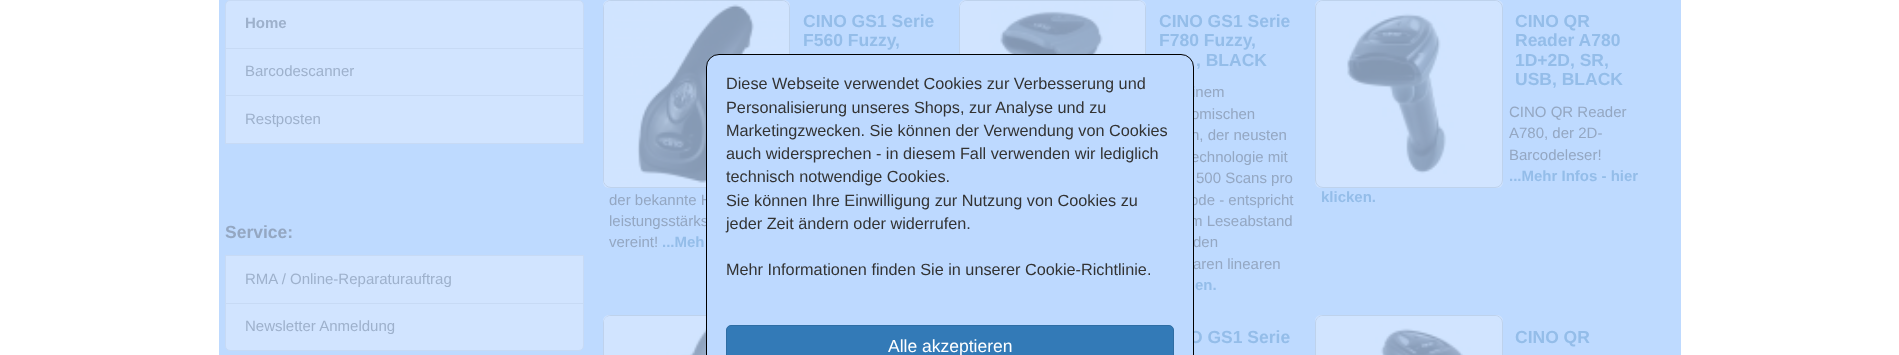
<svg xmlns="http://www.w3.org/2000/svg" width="1899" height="355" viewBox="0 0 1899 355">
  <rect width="100%" height="100%" fill="#ffffff"/>
  <rect x="219" y="0" width="1462" height="355" fill="#bedaff"/>
  <path d="M230 .5H579C581.5 .5 583.5 2.5 583.5 5V48.5H225.5V5C225.5 2.5 227.5 .5 230 .5Z" fill="#d1e4ff" stroke="#c7daf5"/>
  <text x="245" y="28" font-family="Liberation Sans" font-size="15" font-weight="bold" fill="#9eb1cc">Home</text>
  <rect x="225.5" y="48.5" width="358" height="47" fill="#d1e4ff" stroke="#c7daf5"/>
  <text x="245" y="76" font-family="Liberation Sans" font-size="15" fill="#9eb1cc">Barcodescanner</text>
  <rect x="225.5" y="95.5" width="358" height="48" fill="#d1e4ff" stroke="#c7daf5"/>
  <text x="245" y="124" font-family="Liberation Sans" font-size="15" fill="#9eb1cc">Restposten</text>
  <text x="225" y="238" font-family="Liberation Sans" font-size="17.5" font-weight="bold" fill="#94a7c2">Service:</text>
  <rect x="225.5" y="255.5" width="358" height="48" fill="#d1e4ff" stroke="#c7daf5"/>
  <text x="245" y="284" font-family="Liberation Sans" font-size="15" fill="#9eb1cc">RMA / Online-Reparaturauftrag</text>
  <path d="M225.5 303.5H583.5V346C583.5 348.5 581.5 350.5 579 350.5H230C227.5 350.5 225.5 348.5 225.5 346Z" fill="#d1e4ff" stroke="#c7daf5"/>
  <text x="245" y="331" font-family="Liberation Sans" font-size="15" fill="#9eb1cc">Newsletter Anmeldung</text>
  <rect x="603" y="0" width="187" height="188" rx="6" fill="#d1e4ff"/>
  <rect x="603.5" y="0.5" width="186" height="187" rx="7.5" fill="none" stroke="#bed2ec"/>
  <image x="603" y="1" width="186" height="184" href="img1.png"/>
  <text x="803" y="27" font-family="Liberation Sans" font-size="17.5" font-weight="bold" fill="#94bde9">CINO GS1 Serie</text>
  <text x="803" y="46" font-family="Liberation Sans" font-size="17.5" font-weight="bold" fill="#94bde9">F560 Fuzzy,</text>
  <text x="609" y="205" font-family="Liberation Sans" font-size="15" fill="#94a7c2">der bekannte H</text>
  <text x="609" y="226" font-family="Liberation Sans" font-size="15" fill="#94a7c2">leistungsstärks</text>
  <text x="609" y="247" font-family="Liberation Sans" font-size="15" fill="#94a7c2">vereint!</text>
  <text x="662" y="247" font-family="Liberation Sans" font-size="15" font-weight="bold" fill="#94bde9">...Meh</text>
  <rect x="959" y="0" width="187" height="188" rx="6" fill="#d1e4ff"/>
  <rect x="959.5" y="0.5" width="186" height="187" rx="7.5" fill="none" stroke="#bed2ec"/>
  <image x="960" y="1" width="185" height="53" href="img2.png"/>
  <text x="1159" y="27" font-family="Liberation Sans" font-size="17.5" font-weight="bold" fill="#94bde9">CINO GS1 Serie</text>
  <text x="1159" y="46" font-family="Liberation Sans" font-size="17.5" font-weight="bold" fill="#94bde9">F780 Fuzzy,</text>
  <text x="1196" y="66" font-family="Liberation Sans" font-size="17.5" font-weight="bold" fill="#94bde9">, BLACK</text>
  <text x="1192" y="97" font-family="Liberation Sans" font-size="15" fill="#94a7c2">inem</text>
  <text x="1191" y="119" font-family="Liberation Sans" font-size="15" fill="#94a7c2">omischen</text>
  <text x="1191" y="140" font-family="Liberation Sans" font-size="15" fill="#94a7c2">n, der neusten</text>
  <text x="1191" y="162" font-family="Liberation Sans" font-size="15" fill="#94a7c2">echnologie mit</text>
  <text x="1196" y="183" font-family="Liberation Sans" font-size="15" fill="#94a7c2">500 Scans pro</text>
  <text x="1190" y="205" font-family="Liberation Sans" font-size="15" fill="#94a7c2">ode - entspricht</text>
  <text x="1190" y="226" font-family="Liberation Sans" font-size="15" fill="#94a7c2">m Leseabstand</text>
  <text x="1193" y="247" font-family="Liberation Sans" font-size="15" fill="#94a7c2">den</text>
  <text x="1193" y="269" font-family="Liberation Sans" font-size="15" fill="#94a7c2">aren linearen</text>
  <text x="1195" y="290" font-family="Liberation Sans" font-size="15" font-weight="bold" fill="#94bde9">en.</text>
  <rect x="1315" y="0" width="188" height="188" rx="6" fill="#d1e4ff"/>
  <rect x="1315.5" y="0.5" width="187" height="187" rx="7.5" fill="none" stroke="#bed2ec"/>
  <image x="1316" y="1" width="184" height="173" href="img3.png"/>
  <text x="1515" y="27" font-family="Liberation Sans" font-size="17.5" font-weight="bold" fill="#94bde9">CINO QR</text>
  <text x="1515" y="46" font-family="Liberation Sans" font-size="17.5" font-weight="bold" fill="#94bde9">Reader A780</text>
  <text x="1515" y="66" font-family="Liberation Sans" font-size="17.5" font-weight="bold" fill="#94bde9">1D+2D, SR,</text>
  <text x="1515" y="85" font-family="Liberation Sans" font-size="17.5" font-weight="bold" fill="#94bde9">USB, BLACK</text>
  <text x="1509" y="117" font-family="Liberation Sans" font-size="15" fill="#94a7c2">CINO QR Reader</text>
  <text x="1509" y="138" font-family="Liberation Sans" font-size="15" fill="#94a7c2">A780, der 2D-</text>
  <text x="1509" y="160" font-family="Liberation Sans" font-size="15" fill="#94a7c2">Barcodeleser!</text>
  <text x="1509" y="181" font-family="Liberation Sans" font-size="15" font-weight="bold" fill="#94bde9">...Mehr Infos - hier</text>
  <text x="1321" y="202" font-family="Liberation Sans" font-size="15" font-weight="bold" fill="#94bde9">klicken.</text>
  <rect x="603" y="315" width="187" height="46" rx="6" fill="#d1e4ff"/>
  <rect x="603.5" y="315.5" width="186" height="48" rx="7.5" fill="none" stroke="#bed2ec"/>
  <image x="603" y="316" width="103" height="39" href="img4.png"/>
  <text x="1189" y="343" font-family="Liberation Sans" font-size="17.5" font-weight="bold" fill="#94bde9">O GS1 Serie</text>
  <rect x="1315" y="315" width="188" height="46" rx="6" fill="#d1e4ff"/>
  <rect x="1315.5" y="315.5" width="187" height="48" rx="7.5" fill="none" stroke="#bed2ec"/>
  <image x="1316" y="316" width="184" height="39" href="img5.png"/>
  <text x="1515" y="343" font-family="Liberation Sans" font-size="17.5" font-weight="bold" fill="#94bde9">CINO QR</text>
  <rect x="706.5" y="54.5" width="487" height="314" rx="12.5" fill="#bdd9ff" stroke="#000000"/>
  <text x="726" y="89" font-family="Liberation Sans" font-size="16.25" fill="#333333">Diese Webseite verwendet Cookies zur Verbesserung und</text>
  <text x="726" y="113" font-family="Liberation Sans" font-size="16.25" fill="#333333">Personalisierung unseres Shops, zur Analyse und zu</text>
  <text x="726" y="136" font-family="Liberation Sans" font-size="16.25" fill="#333333">Marketingzwecken. Sie können der Verwendung von Cookies</text>
  <text x="726" y="159" font-family="Liberation Sans" font-size="16.25" fill="#333333">auch widersprechen - in diesem Fall verwenden wir lediglich</text>
  <text x="726" y="182" font-family="Liberation Sans" font-size="16.25" fill="#333333">technisch notwendige Cookies.</text>
  <text x="726" y="206" font-family="Liberation Sans" font-size="16.25" fill="#333333">Sie können Ihre Einwilligung zur Nutzung von Cookies zu</text>
  <text x="726" y="229" font-family="Liberation Sans" font-size="16.25" fill="#333333">jeder Zeit ändern oder widerrufen.</text>
  <text x="726" y="275" font-family="Liberation Sans" font-size="16.25" fill="#333333">Mehr Informationen finden Sie in unserer Cookie-Richtlinie.</text>
  <rect x="726.5" y="325.5" width="447" height="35" rx="4.5" fill="#337ab7" stroke="#2e6da4"/>
  <text x="888" y="352" font-family="Liberation Sans" font-size="17.5" fill="#ffffff">Alle akzeptieren</text>
</svg>
